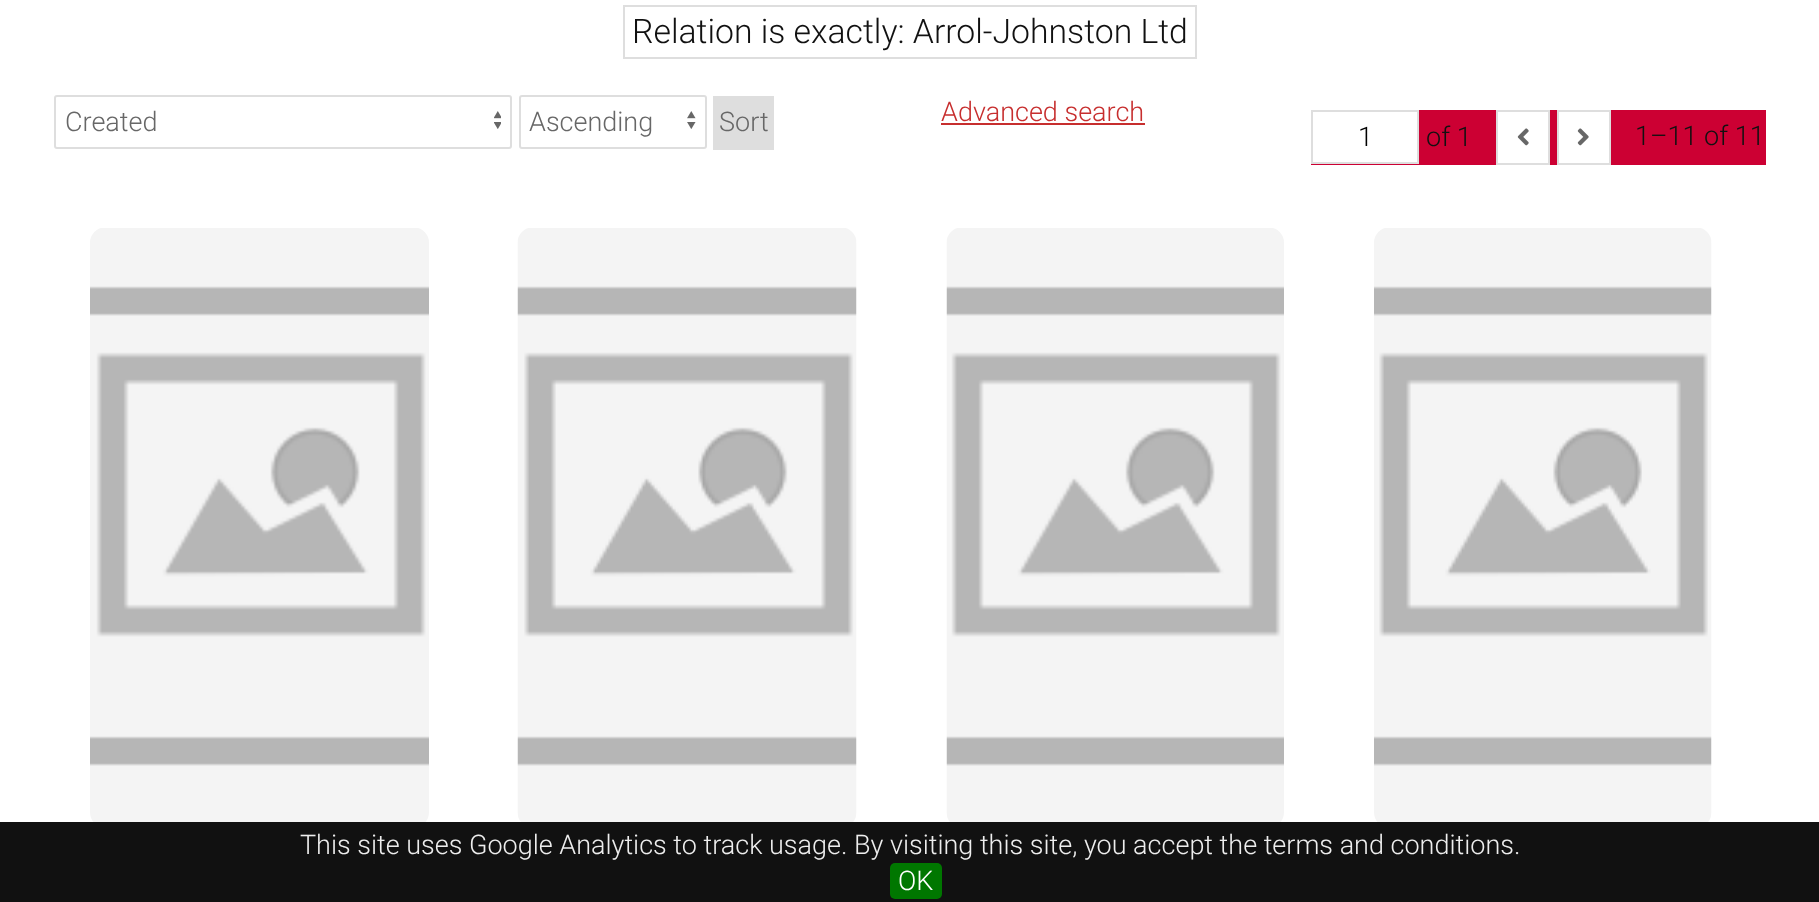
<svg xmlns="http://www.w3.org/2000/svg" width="1819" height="902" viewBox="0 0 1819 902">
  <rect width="100%" height="100%" fill="#ffffff"/>
  <rect x="624" y="6" width="572" height="52" fill="none" stroke="#dedede" stroke-width="2"/>
  <text x="632" y="43" font-family="Roboto" font-size="33.75" font-weight="300" fill="#111111">Relation is exactly: Arrol-Johnston Ltd</text>
  <image x="494" y="111" width="7" height="18" href="img1.png"/>
  <rect x="55" y="96" width="456" height="52" rx="2" fill="none" stroke="#dedede" stroke-width="2"/>
  <text x="65" y="131" font-family="Roboto" font-size="27" font-weight="300" fill="#676767">Created</text>
  <image x="687" y="111" width="9" height="18" href="img2.png"/>
  <rect x="520" y="96" width="186" height="52" rx="2" fill="none" stroke="#dedede" stroke-width="2"/>
  <text x="529" y="131" font-family="Roboto" font-size="27" font-weight="300" fill="#676767">Ascending</text>
  <rect x="713" y="96" width="61" height="54" fill="#dedede"/>
  <text x="719" y="131" font-family="Roboto" font-size="27" font-weight="300" fill="#676767">Sort</text>
  <text x="941" y="121" font-family="Roboto" font-size="27" font-weight="300" fill="#c72e2e">Advanced search</text>
  <rect x="941" y="123" width="204" height="2" fill="#c72e2e"/>
  <rect x="1311" y="110" width="455" height="55" fill="#cc0033"/>
  <rect x="1312" y="111" width="106" height="52" fill="#ffffff" stroke="#dedede" stroke-width="2"/>
  <text x="1358" y="146" font-family="Roboto" font-size="27" font-weight="300" fill="#000000">1</text>
  <text x="1426" y="146" font-family="Roboto" font-size="27" font-weight="300" fill="#111111">of 1</text>
  <rect x="1497" y="111" width="52" height="53" fill="#ffffff" stroke="#dedede" stroke-width="2"/>
  <image x="1517" y="128" width="12" height="18" href="img3.png"/>
  <rect x="1558" y="111" width="52" height="53" fill="#ffffff" stroke="#dedede" stroke-width="2"/>
  <image x="1577" y="128" width="12" height="18" href="img4.png"/>
  <text x="1635" y="145" font-family="Roboto" font-size="27" font-weight="300" fill="#111111">1–11 of 11</text>
  <image x="90" y="228" width="339" height="594" href="img5.png"/>
  <image x="517" y="228" width="340" height="594" href="img6.png"/>
  <image x="946" y="228" width="338" height="594" href="img7.png"/>
  <image x="1374" y="228" width="338" height="594" href="img8.png"/>
  <rect x="0" y="822" width="1819" height="80" fill="#111111"/>
  <text x="300" y="854" font-family="Roboto" font-size="27" font-weight="300" fill="#eeeeee">This site uses Google Analytics to track usage. By visiting this site, you accept the terms and conditions.</text>
  <rect x="890" y="863" width="52" height="36" rx="5" fill="#007700"/>
  <text x="898" y="890" font-family="Roboto" font-size="27" font-weight="300" fill="#ffffff">OK</text>
</svg>
